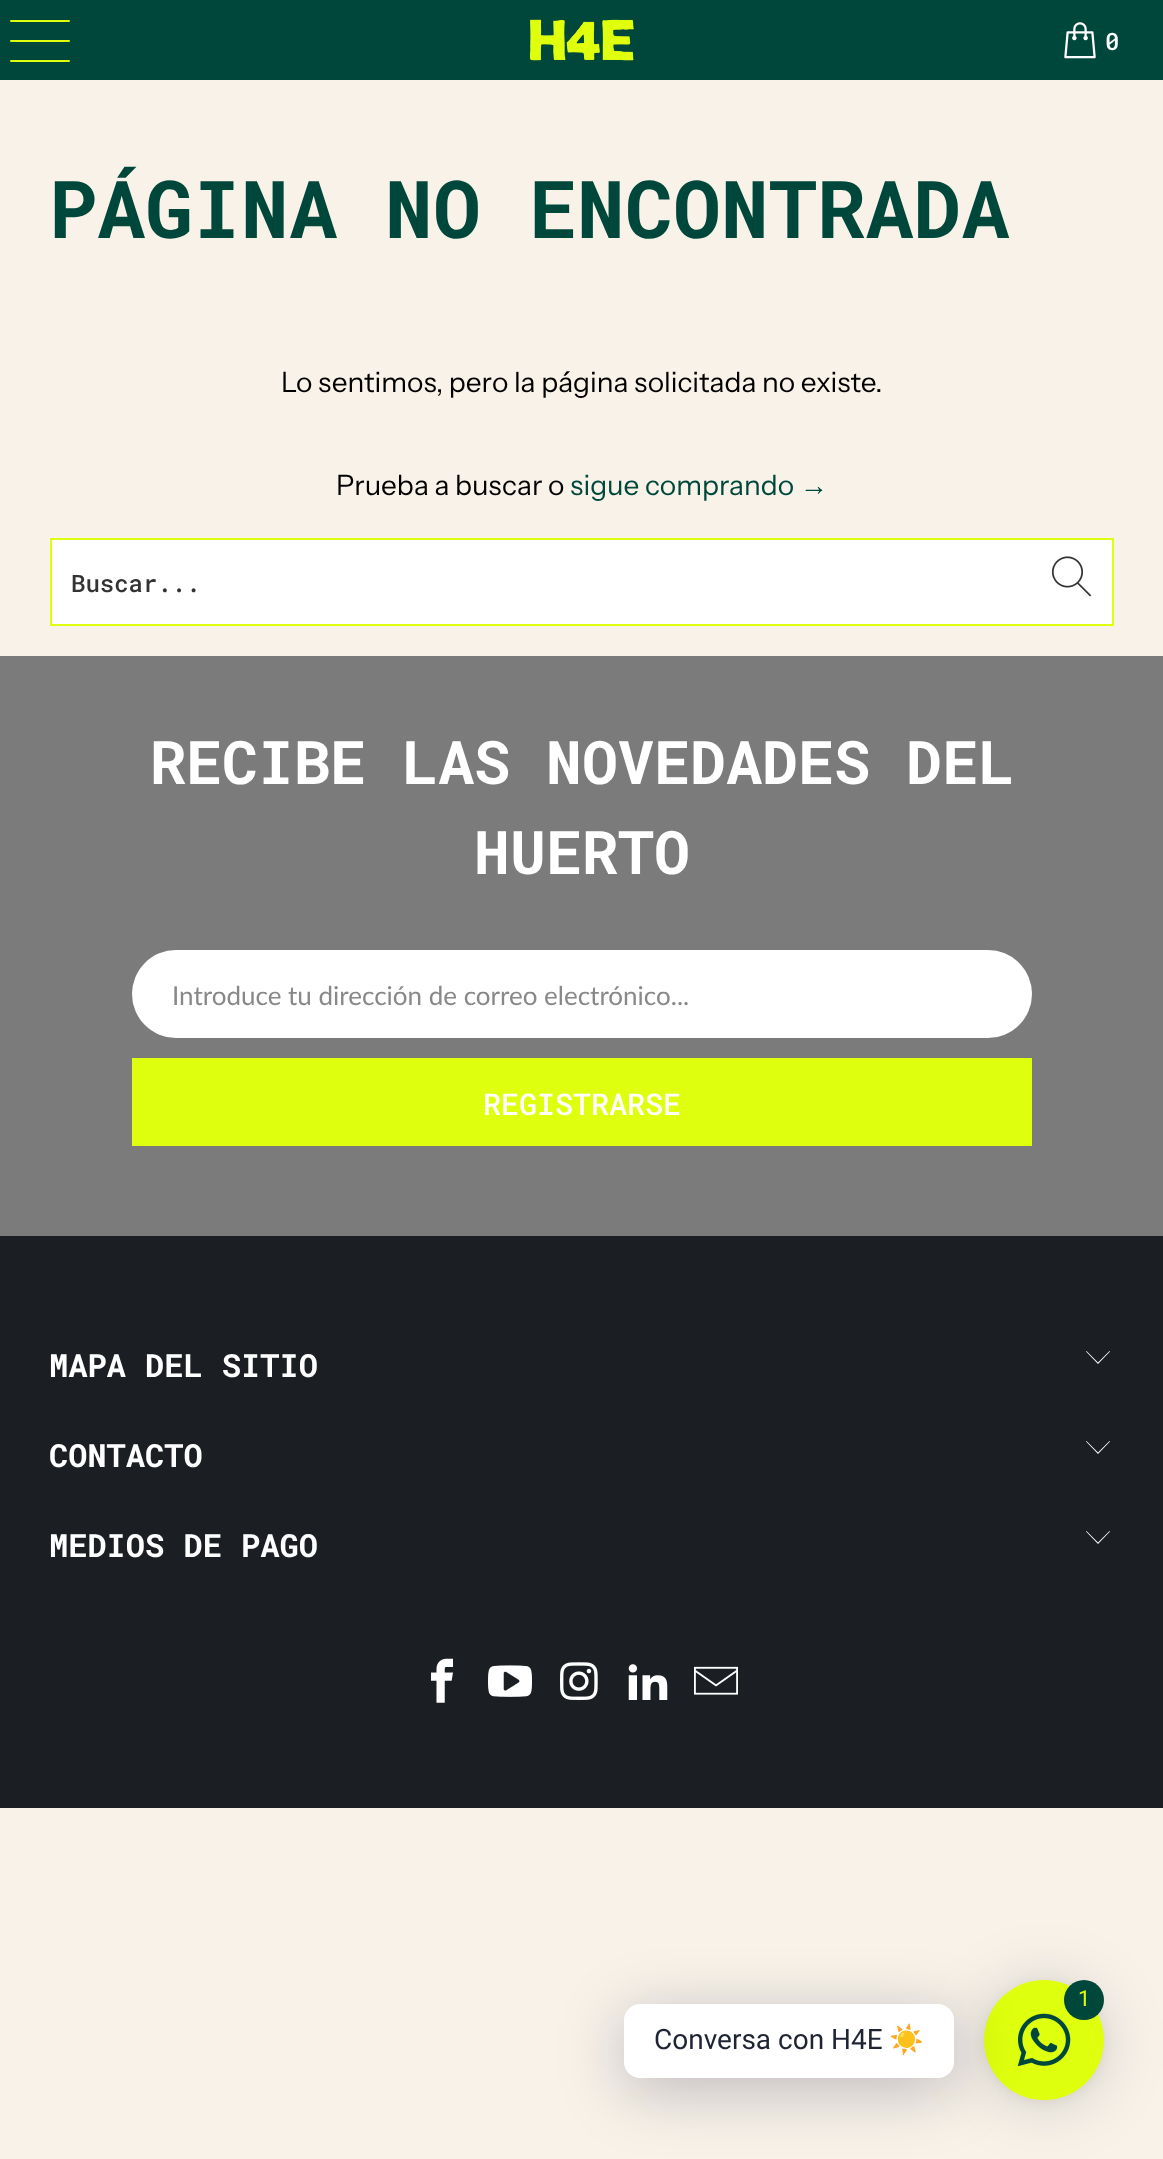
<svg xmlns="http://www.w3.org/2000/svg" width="1163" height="2159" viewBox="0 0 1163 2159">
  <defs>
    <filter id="blur1" x="-50%" y="-200%" width="200%" height="500%"><feGaussianBlur stdDeviation="32"/></filter>
    <filter id="blur2" x="-50%" y="-200%" width="200%" height="500%"><feGaussianBlur stdDeviation="6"/></filter>
  </defs>
  <rect width="100%" height="100%" fill="#f8f2e9"/>
  <rect x="0" y="0" width="1163" height="80" fill="#00473b"/>
  <rect x="10" y="20" width="60" height="2" rx="1" fill="#deff0d"/>
  <rect x="10" y="40" width="60" height="2" rx="1" fill="#deff0d"/>
  <rect x="10" y="60" width="60" height="2" rx="1" fill="#deff0d"/>
  <image x="529" y="19" width="105" height="42" href="img1.png"/>
  <image x="1064" y="22" width="32" height="37" href="img2.png"/>
  <text x="1105" y="50" font-family="Roboto Mono" font-size="24" font-weight="500" letter-spacing="2" fill="#ffffff">0</text>
  <text x="49" y="238" font-family="Roboto Mono" font-size="80" font-weight="bold" fill="#00473b">PÁGINA NO ENCONTRADA</text>
  <text x="281" y="392" font-family="Instrument Sans" font-size="28" fill="#000000">Lo sentimos, pero la página solicitada no existe.</text>
  <text x="336" y="495" font-family="Instrument Sans" font-size="28" fill="#000000">Prueba a buscar o</text>
  <text x="570" y="495" font-family="Instrument Sans" font-size="28" fill="#00473b">sigue comprando</text>
  <text x="800" y="495" font-family="Liberation Sans" font-size="28" fill="#00473b">→</text>
  <rect x="51" y="539" width="1062" height="86" fill="#ffffff" stroke="#deff0d" stroke-width="2"/>
  <text x="71" y="592" font-family="Roboto Mono" font-size="24" font-weight="500" fill="#333333">Buscar...</text>
  <image x="1051" y="556" width="41" height="41" href="img3.png"/>
  <rect x="0" y="656" width="1163" height="580" fill="#7c7b7b"/>
  <text x="150" y="784" font-family="Roboto Mono" font-size="60" font-weight="bold" fill="#ffffff">RECIBE LAS NOVEDADES DEL</text>
  <text x="474" y="874" font-family="Roboto Mono" font-size="60" font-weight="bold" fill="#ffffff">HUERTO</text>
  <rect x="132" y="950" width="900" height="88" rx="44" fill="#ffffff"/>
  <text x="172" y="1005" font-family="Lato" font-size="26" fill="#888888">Introduce tu dirección de correo electrónico...</text>
  <rect x="132" y="1058" width="900" height="88" fill="#deff0d"/>
  <text x="483" y="1115" font-family="Roboto Mono" font-size="30" font-weight="500" fill="#ffffff">REGISTRARSE</text>
  <rect x="0" y="1236" width="1163" height="572" fill="#1b1f23"/>
  <text x="49" y="1377" font-family="Roboto Mono" font-size="32" font-weight="bold" fill="#ffffff">MAPA DEL SITIO</text>
  <path d="M1098 1364L1086 1351.5L1086.5 1351L1098 1362.5L1109.5 1351L1110 1351.5Z" fill="#ffffff"/>
  <text x="49" y="1467" font-family="Roboto Mono" font-size="32" font-weight="bold" fill="#ffffff">CONTACTO</text>
  <path d="M1098 1454L1086 1441.5L1086.5 1441L1098 1452.5L1109.5 1441L1110 1441.5Z" fill="#ffffff"/>
  <text x="49" y="1557" font-family="Roboto Mono" font-size="32" font-weight="bold" fill="#ffffff">MEDIOS DE PAGO</text>
  <path d="M1098 1544L1086 1531.5L1086.5 1531L1098 1542.5L1109.5 1531L1110 1531.5Z" fill="#ffffff"/>
  <image x="431" y="1658" width="22" height="45" href="img4.png"/>
  <image x="488" y="1665" width="44" height="32" href="img5.png"/>
  <image x="560" y="1662" width="38" height="38" href="img6.png"/>
  <image x="628" y="1664" width="40" height="36" href="img7.png"/>
  <image x="694" y="1666" width="44" height="29" href="img8.png"/>
  <rect x="984" y="1984" width="120" height="120" rx="60" fill="#000000" fill-opacity="0.16" filter="url(#blur1)"/>
  <rect x="984" y="1982" width="120" height="120" rx="60" fill="#000000" fill-opacity="0.06" filter="url(#blur2)"/>
  <circle cx="1044" cy="2040" r="60" fill="#deff0d"/>
  <rect x="624" y="2016" width="330" height="74" rx="16" fill="#00122e" fill-opacity="0.24" filter="url(#blur1)"/>
  <image x="1017" y="2013" width="54" height="54" href="img9.png"/>
  <circle cx="1084" cy="2000" r="20" fill="#00473b"/>
  <text x="1078" y="2006" font-family="Roboto" font-size="22" fill="#deff0d">1</text>
  <rect x="624" y="2004" width="330" height="74" rx="16" fill="#ffffff"/>
  <text x="654" y="2049" font-family="Roboto" font-size="28" fill="#1e2433">Conversa con H4E</text>
  <text x="889" y="2049" font-family="Noto Color Emoji" font-size="28" fill="#1e2433">☀️</text>
</svg>
